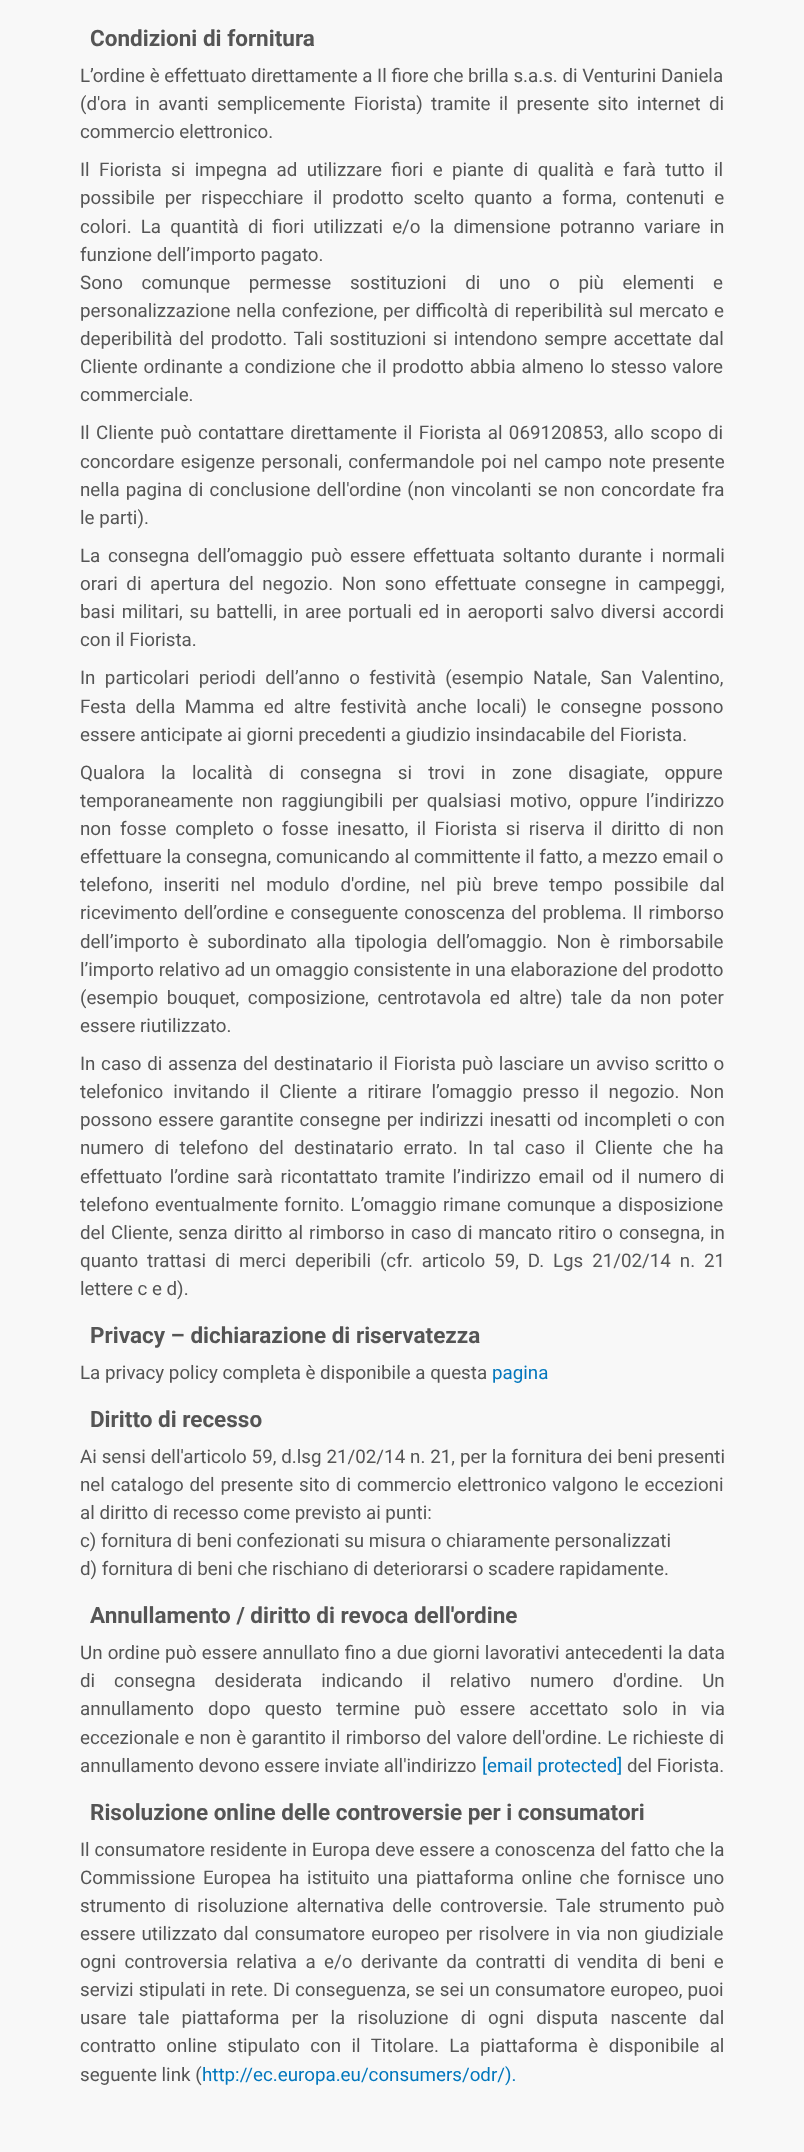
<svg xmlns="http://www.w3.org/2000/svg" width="804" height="2152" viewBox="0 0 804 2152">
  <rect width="100%" height="100%" fill="#f8f8f8"/>
  <text x="90" y="46" font-family="Roboto" font-size="22.5" font-weight="bold" fill="#555555">Condizioni di fornitura</text>
  <text x="80" y="82" font-family="Roboto" font-size="18.75" fill="#555555">L’ordine è effettuato direttamente a Il fiore che brilla s.a.s. di Venturini Daniela</text>
  <text x="80" y="110" word-spacing="3.75" font-family="Roboto" font-size="18.75" fill="#555555">(d'ora in avanti semplicemente Fiorista) tramite il presente sito internet di</text>
  <text x="80" y="138" font-family="Roboto" font-size="18.75" fill="#555555">commercio elettronico.</text>
  <text x="80" y="176" word-spacing="4.75" font-family="Roboto" font-size="18.75" fill="#555555">Il Fiorista si impegna ad utilizzare fiori e piante di qualità e farà tutto il</text>
  <text x="80" y="204" word-spacing="5.25" font-family="Roboto" font-size="18.75" fill="#555555">possibile per rispecchiare il prodotto scelto quanto a forma, contenuti e</text>
  <text x="80" y="233" word-spacing="4.5" font-family="Roboto" font-size="18.75" fill="#555555">colori. La quantità di fiori utilizzati e/o la dimensione potranno variare in</text>
  <text x="80" y="261" font-family="Roboto" font-size="18.75" fill="#555555">funzione dell’importo pagato.</text>
  <text x="80" y="289" word-spacing="14" font-family="Roboto" font-size="18.75" fill="#555555">Sono comunque permesse sostituzioni di uno o più elementi e</text>
  <text x="80" y="317" word-spacing="1.1" font-family="Roboto" font-size="18.75" fill="#555555">personalizzazione nella confezione, per difficoltà di reperibilità sul mercato e</text>
  <text x="80" y="345" word-spacing="2" font-family="Roboto" font-size="18.75" fill="#555555">deperibilità del prodotto. Tali sostituzioni si intendono sempre accettate dal</text>
  <text x="80" y="373" word-spacing="1.25" font-family="Roboto" font-size="18.75" fill="#555555">Cliente ordinante a condizione che il prodotto abbia almeno lo stesso valore</text>
  <text x="80" y="401" font-family="Roboto" font-size="18.75" fill="#555555">commerciale.</text>
  <text x="80" y="439" word-spacing="1.75" font-family="Roboto" font-size="18.75" fill="#555555">Il Cliente può contattare direttamente il Fiorista al 069120853, allo scopo di</text>
  <text x="80" y="468" word-spacing="1.75" font-family="Roboto" font-size="18.75" fill="#555555">concordare esigenze personali, confermandole poi nel campo note presente</text>
  <text x="80" y="496" word-spacing="1.5" font-family="Roboto" font-size="18.75" fill="#555555">nella pagina di conclusione dell'ordine (non vincolanti se non concordate fra</text>
  <text x="80" y="524" font-family="Roboto" font-size="18.75" fill="#555555">le parti).</text>
  <text x="80" y="562" word-spacing="3" font-family="Roboto" font-size="18.75" fill="#555555">La consegna dell’omaggio può essere effettuata soltanto durante i normali</text>
  <text x="80" y="590" word-spacing="3.9" font-family="Roboto" font-size="18.75" fill="#555555">orari di apertura del negozio. Non sono effettuate consegne in campeggi,</text>
  <text x="80" y="618" word-spacing="2.1" font-family="Roboto" font-size="18.75" fill="#555555">basi militari, su battelli, in aree portuali ed in aeroporti salvo diversi accordi</text>
  <text x="80" y="646" font-family="Roboto" font-size="18.75" fill="#555555">con il Fiorista.</text>
  <text x="80" y="684" word-spacing="4.75" font-family="Roboto" font-size="18.75" fill="#555555">In particolari periodi dell’anno o festività (esempio Natale, San Valentino,</text>
  <text x="80" y="713" word-spacing="4.75" font-family="Roboto" font-size="18.75" fill="#555555">Festa della Mamma ed altre festività anche locali) le consegne possono</text>
  <text x="80" y="741" font-family="Roboto" font-size="18.75" fill="#555555">essere anticipate ai giorni precedenti a giudizio insindacabile del Fiorista.</text>
  <text x="80" y="779" word-spacing="11.5" font-family="Roboto" font-size="18.75" fill="#555555">Qualora la località di consegna si trovi in zone disagiate, oppure</text>
  <text x="80" y="807" word-spacing="3.75" font-family="Roboto" font-size="18.75" fill="#555555">temporaneamente non raggiungibili per qualsiasi motivo, oppure l’indirizzo</text>
  <text x="80" y="835" word-spacing="4" font-family="Roboto" font-size="18.75" fill="#555555">non fosse completo o fosse inesatto, il Fiorista si riserva il diritto di non</text>
  <text x="80" y="863" word-spacing="0.1" font-family="Roboto" font-size="18.75" fill="#555555">effettuare la consegna, comunicando al committente il fatto, a mezzo email o</text>
  <text x="80" y="891" word-spacing="6.25" font-family="Roboto" font-size="18.75" fill="#555555">telefono, inseriti nel modulo d'ordine, nel più breve tempo possibile dal</text>
  <text x="80" y="919" word-spacing="1.5" font-family="Roboto" font-size="18.75" fill="#555555">ricevimento dell’ordine e conseguente conoscenza del problema. Il rimborso</text>
  <text x="80" y="948" word-spacing="4.5" font-family="Roboto" font-size="18.75" fill="#555555">dell’importo è subordinato alla tipologia dell’omaggio. Non è rimborsabile</text>
  <text x="80" y="976" font-family="Roboto" font-size="18.75" fill="#555555">l’importo relativo ad un omaggio consistente in una elaborazione del prodotto</text>
  <text x="80" y="1004" word-spacing="4" font-family="Roboto" font-size="18.75" fill="#555555">(esempio bouquet, composizione, centrotavola ed altre) tale da non poter</text>
  <text x="80" y="1032" font-family="Roboto" font-size="18.75" fill="#555555">essere riutilizzato.</text>
  <text x="80" y="1070" word-spacing="1" font-family="Roboto" font-size="18.75" fill="#555555">In caso di assenza del destinatario il Fiorista può lasciare un avviso scritto o</text>
  <text x="80" y="1098" word-spacing="5.5" font-family="Roboto" font-size="18.75" fill="#555555">telefonico invitando il Cliente a ritirare l’omaggio presso il negozio. Non</text>
  <text x="80" y="1126" word-spacing="1.25" font-family="Roboto" font-size="18.75" fill="#555555">possono essere garantite consegne per indirizzi inesatti od incompleti o con</text>
  <text x="80" y="1154" word-spacing="5.6" font-family="Roboto" font-size="18.75" fill="#555555">numero di telefono del destinatario errato. In tal caso il Cliente che ha</text>
  <text x="80" y="1183" word-spacing="3" font-family="Roboto" font-size="18.75" fill="#555555">effettuato l’ordine sarà ricontattato tramite l’indirizzo email od il numero di</text>
  <text x="80" y="1211" word-spacing="1.5" font-family="Roboto" font-size="18.75" fill="#555555">telefono eventualmente fornito. L’omaggio rimane comunque a disposizione</text>
  <text x="80" y="1239" word-spacing="1.25" font-family="Roboto" font-size="18.75" fill="#555555">del Cliente, senza diritto al rimborso in caso di mancato ritiro o consegna, in</text>
  <text x="80" y="1267" word-spacing="4.25" font-family="Roboto" font-size="18.75" fill="#555555">quanto trattasi di merci deperibili (cfr. articolo 59, D. Lgs 21/02/14 n. 21</text>
  <text x="80" y="1295" font-family="Roboto" font-size="18.75" fill="#555555">lettere c e d).</text>
  <text x="90" y="1343" font-family="Roboto" font-size="22.5" font-weight="bold" fill="#555555">Privacy – dichiarazione di riservatezza</text>
  <text x="80" y="1379" font-family="Roboto" font-size="18.75" fill="#555555">La privacy policy completa è disponibile a questa</text>
  <text x="492" y="1379" font-family="Roboto" font-size="18.75" fill="#0277bd">pagina</text>
  <text x="90" y="1427" font-family="Roboto" font-size="22.5" font-weight="bold" fill="#555555">Diritto di recesso</text>
  <text x="80" y="1463" word-spacing="0.25" font-family="Roboto" font-size="18.75" fill="#555555">Ai sensi dell'articolo 59, d.lsg 21/02/14 n. 21, per la fornitura dei beni presenti</text>
  <text x="80" y="1491" word-spacing="1.25" font-family="Roboto" font-size="18.75" fill="#555555">nel catalogo del presente sito di commercio elettronico valgono le eccezioni</text>
  <text x="80" y="1519" font-family="Roboto" font-size="18.75" fill="#555555">al diritto di recesso come previsto ai punti:</text>
  <text x="80" y="1547" font-family="Roboto" font-size="18.75" fill="#555555">c) fornitura di beni confezionati su misura o chiaramente personalizzati</text>
  <text x="80" y="1575" font-family="Roboto" font-size="18.75" fill="#555555">d) fornitura di beni che rischiano di deteriorarsi o scadere rapidamente.</text>
  <text x="90" y="1623" font-family="Roboto" font-size="22.5" font-weight="bold" fill="#555555">Annullamento / diritto di revoca dell'ordine</text>
  <text x="80" y="1659" word-spacing="0.5" font-family="Roboto" font-size="18.75" fill="#555555">Un ordine può essere annullato fino a due giorni lavorativi antecedenti la data</text>
  <text x="80" y="1687" word-spacing="14.25" font-family="Roboto" font-size="18.75" fill="#555555">di consegna desiderata indicando il relativo numero d'ordine. Un</text>
  <text x="80" y="1715" word-spacing="9.5" font-family="Roboto" font-size="18.75" fill="#555555">annullamento dopo questo termine può essere accettato solo in via</text>
  <text x="80" y="1744" word-spacing="0.6" font-family="Roboto" font-size="18.75" fill="#555555">eccezionale e non è garantito il rimborso del valore dell'ordine. Le richieste di</text>
  <text x="80" y="1772" font-family="Roboto" font-size="18.75" fill="#555555">annullamento devono essere inviate all'indirizzo</text>
  <text x="482" y="1772" font-family="Roboto" font-size="18.75" fill="#0277bd">[email protected]</text>
  <text x="627" y="1772" font-family="Roboto" font-size="18.75" fill="#555555">del Fiorista.</text>
  <text x="90" y="1820" font-family="Roboto" font-size="22.5" font-weight="bold" fill="#555555">Risoluzione online delle controversie per i consumatori</text>
  <text x="80" y="1856" word-spacing="0.25" font-family="Roboto" font-size="18.75" fill="#555555">Il consumatore residente in Europa deve essere a conoscenza del fatto che la</text>
  <text x="80" y="1884" word-spacing="3" font-family="Roboto" font-size="18.75" fill="#555555">Commissione Europea ha istituito una piattaforma online che fornisce uno</text>
  <text x="80" y="1912" word-spacing="3.5" font-family="Roboto" font-size="18.75" fill="#555555">strumento di risoluzione alternativa delle controversie. Tale strumento può</text>
  <text x="80" y="1940" word-spacing="1.5" font-family="Roboto" font-size="18.75" fill="#555555">essere utilizzato dal consumatore europeo per risolvere in via non giudiziale</text>
  <text x="80" y="1968" word-spacing="3.75" font-family="Roboto" font-size="18.75" fill="#555555">ogni controversia relativa a e/o derivante da contratti di vendita di beni e</text>
  <text x="80" y="1996" word-spacing="0.5" font-family="Roboto" font-size="18.75" fill="#555555">servizi stipulati in rete. Di conseguenza, se sei un consumatore europeo, puoi</text>
  <text x="80" y="2024" word-spacing="7.5" font-family="Roboto" font-size="18.75" fill="#555555">usare tale piattaforma per la risoluzione di ogni disputa nascente dal</text>
  <text x="80" y="2052" word-spacing="5.75" font-family="Roboto" font-size="18.75" fill="#555555">contratto online stipulato con il Titolare. La piattaforma è disponibile al</text>
  <text x="80" y="2081" font-family="Roboto" font-size="18.75" fill="#555555">seguente link (</text>
  <text x="202" y="2081" font-family="Roboto" font-size="18.75" fill="#0277bd">http://ec.europa.eu/consumers/odr/).</text>
</svg>
